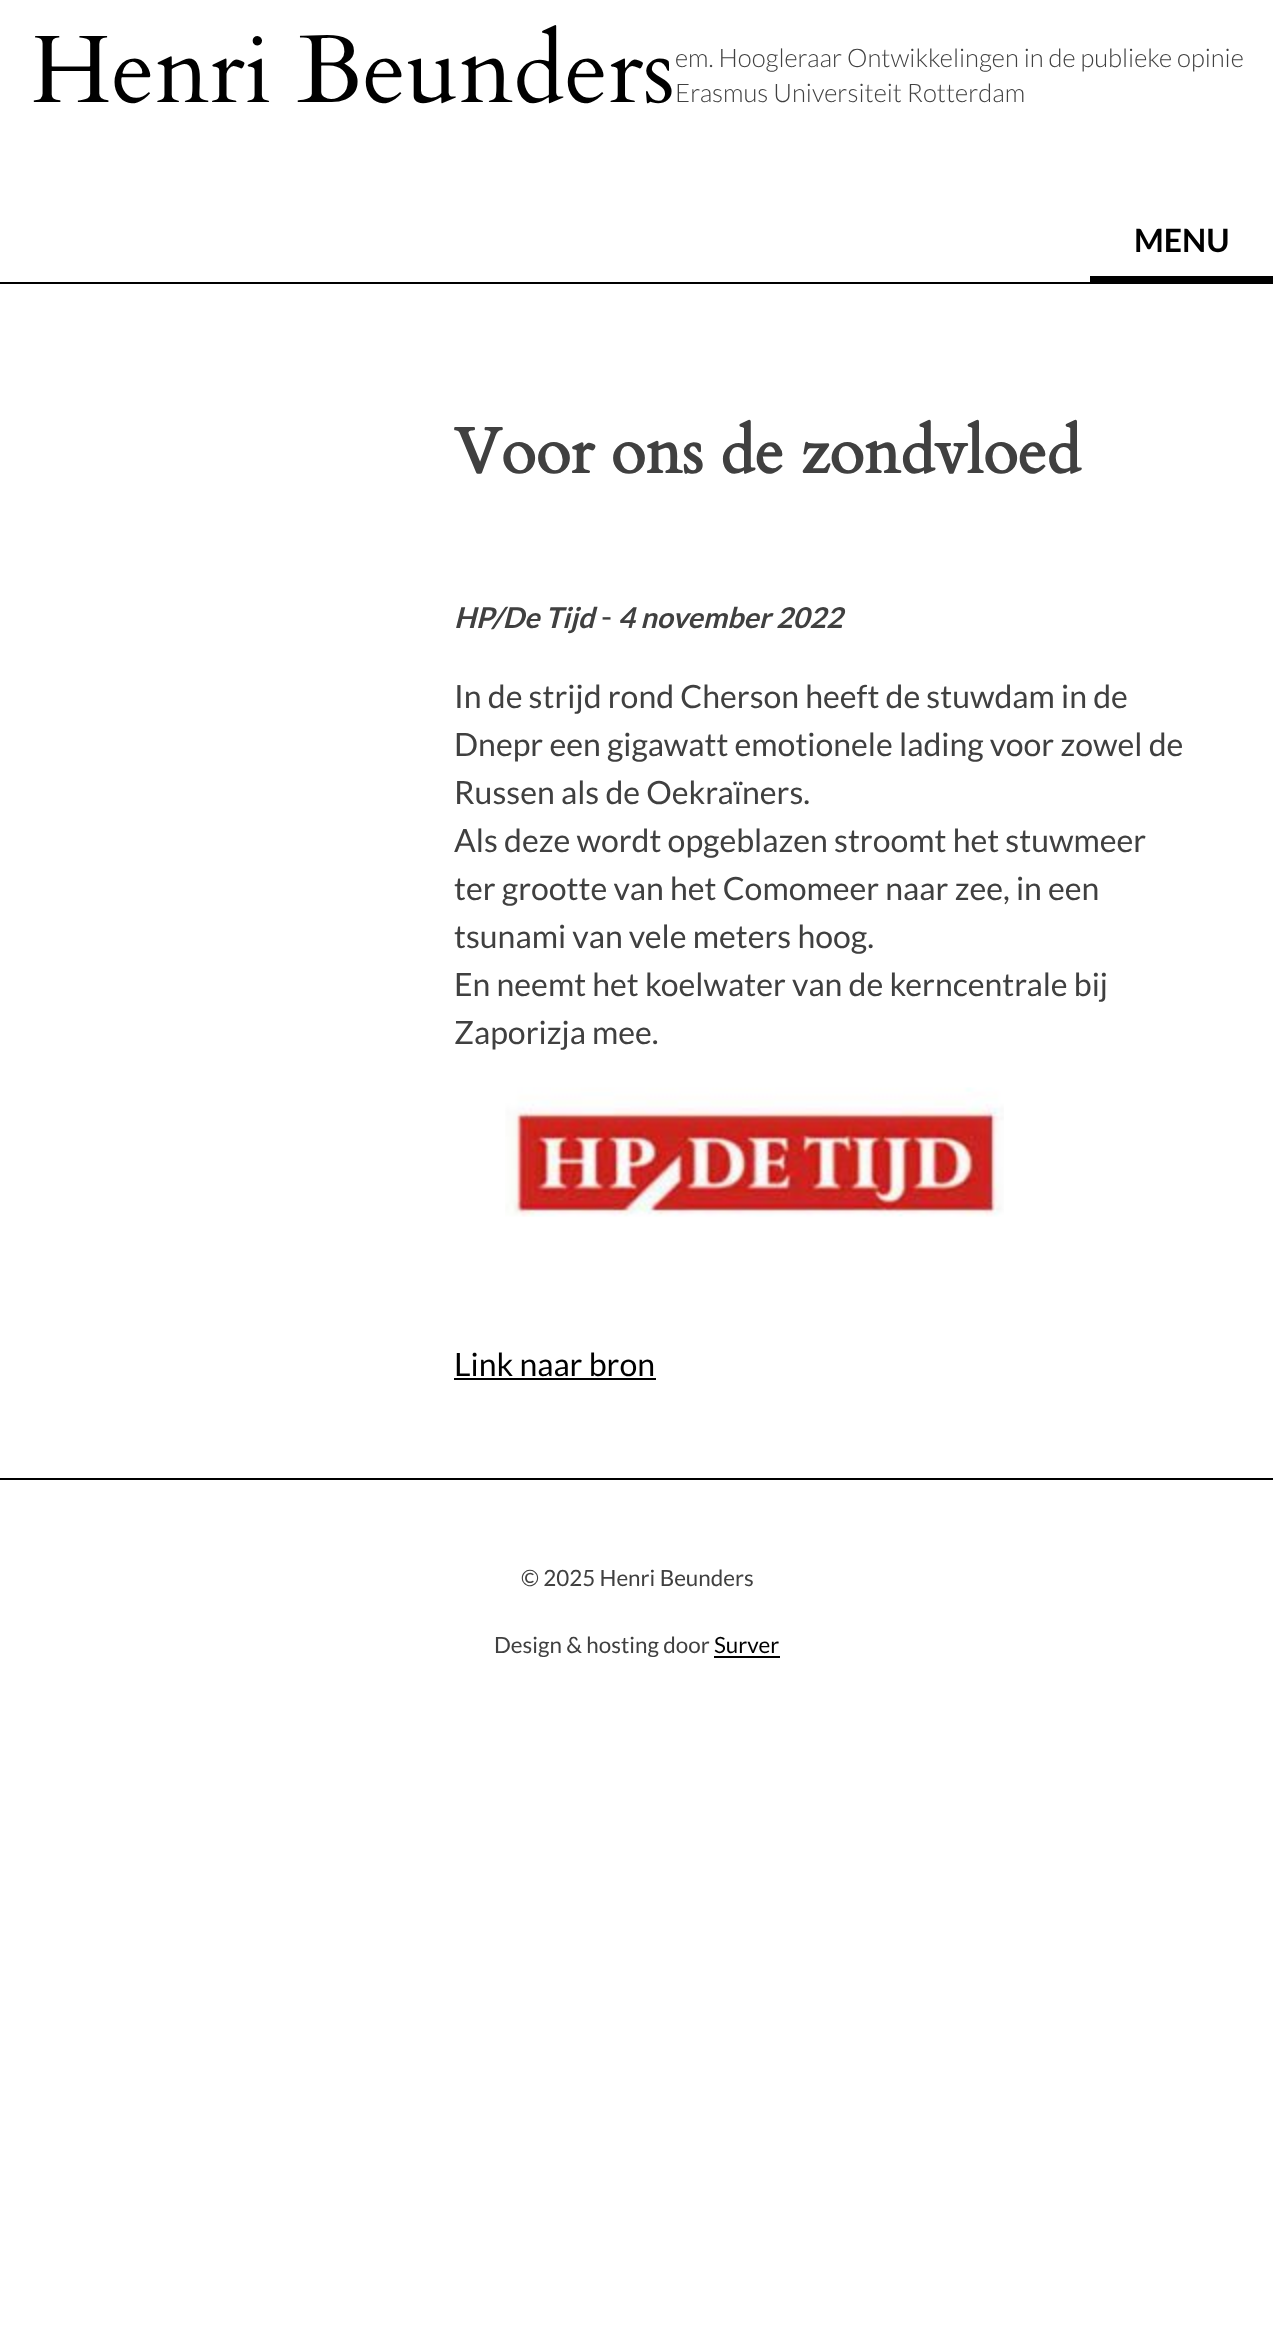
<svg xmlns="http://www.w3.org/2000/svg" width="1273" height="2349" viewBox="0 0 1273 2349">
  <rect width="100%" height="100%" fill="#ffffff"/>
  <text x="31" y="102" font-family="Cardo" font-size="96" fill="#000000">Henri Beunders</text>
  <text x="675" y="67" font-family="Lato" font-size="25.6" font-weight="300" fill="#404040">em. Hoogleraar Ontwikkelingen in de publieke opinie</text>
  <text x="675" y="102" font-family="Lato" font-size="25.6" font-weight="300" fill="#404040">Erasmus Universiteit Rotterdam</text>
  <rect x="0" y="282" width="1273" height="2" fill="#000000"/>
  <rect x="1090" y="276" width="183" height="6" fill="#000000"/>
  <text x="1134" y="252" font-family="Lato" font-size="32" font-weight="bold" fill="#000000">MENU</text>
  <text x="454" y="473" font-family="Cardo" font-size="64" font-weight="bold" fill="#404040">Voor ons de zondvloed</text>
  <text x="454" y="628" font-family="Lato" font-size="28.75" font-weight="bold" font-style="italic" fill="#404040">HP/De Tijd</text>
  <text x="601" y="628" font-family="Lato" font-size="32" fill="#404040">-</text>
  <text x="618" y="628" font-family="Lato" font-size="28.75" font-weight="bold" font-style="italic" fill="#404040">4 november 2022</text>
  <text x="454" y="708" font-family="Lato" font-size="32" fill="#404040">In de strijd rond Cherson heeft de stuwdam in de</text>
  <text x="454" y="756" font-family="Lato" font-size="32" fill="#404040">Dnepr een gigawatt emotionele lading voor zowel de</text>
  <text x="454" y="804" font-family="Lato" font-size="32" fill="#404040">Russen als de Oekraïners.</text>
  <text x="454" y="852" font-family="Lato" font-size="32" fill="#404040">Als deze wordt opgeblazen stroomt het stuwmeer</text>
  <text x="454" y="900" font-family="Lato" font-size="32" fill="#404040">ter grootte van het Comomeer naar zee, in een</text>
  <text x="454" y="948" font-family="Lato" font-size="32" fill="#404040">tsunami van vele meters hoog.</text>
  <text x="454" y="996" font-family="Lato" font-size="32" fill="#404040">En neemt het koelwater van de kerncentrale bij</text>
  <text x="454" y="1044" font-family="Lato" font-size="32" fill="#404040">Zaporizja mee.</text>
  <image x="505" y="1087" width="499" height="130" href="img1.png"/>
  <text x="454" y="1376" font-family="Lato" font-size="32" fill="#000000">Link naar bron</text>
  <rect x="454" y="1378" width="202" height="2" fill="#000000"/>
  <rect x="0" y="1478" width="1273" height="2" fill="#000000"/>
  <text x="521" y="1586" font-family="Lato" font-size="22.4" fill="#404040">© 2025 Henri Beunders</text>
  <text x="494" y="1653" font-family="Lato" font-size="22.4" fill="#404040">Design &amp; hosting door</text>
  <text x="714" y="1653" font-family="Lato" font-size="22.4" fill="#000000">Surver</text>
  <rect x="714" y="1656" width="66" height="2" fill="#000000"/>
</svg>
